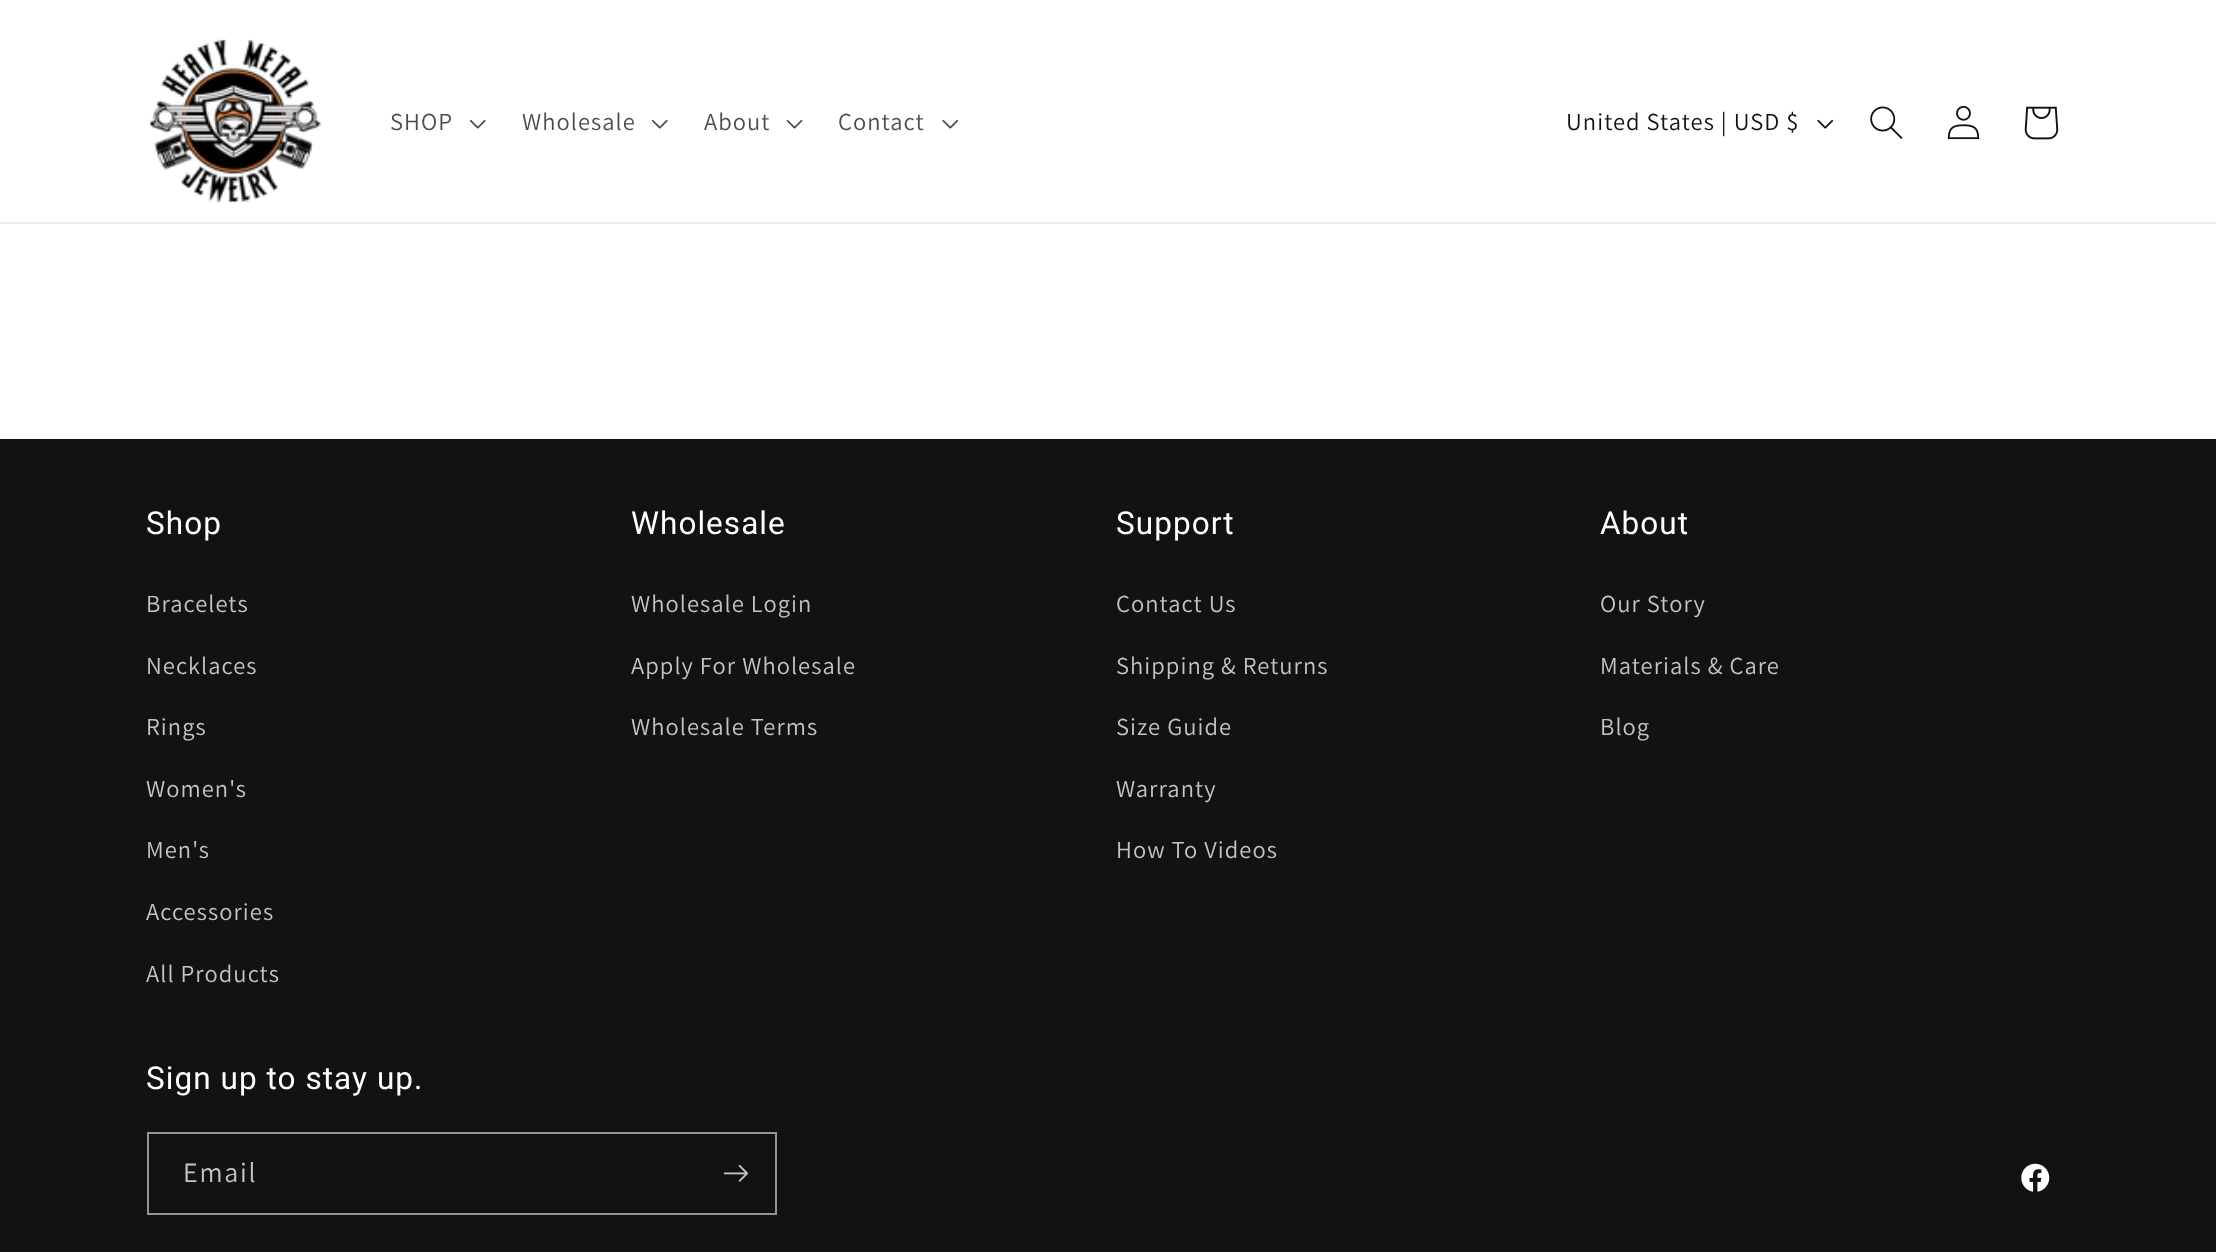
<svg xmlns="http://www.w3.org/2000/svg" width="2216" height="1252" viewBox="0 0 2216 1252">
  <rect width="100%" height="100%" fill="#ffffff"/>
  <rect x="0" y="222" width="2216" height="2" fill="#ececec"/>
  <image x="149" y="39" width="172" height="165" href="img1.png"/>
  <text x="390" y="130" font-family="Assistant" font-size="24.5" letter-spacing="1.05" fill="#4d4d4d">SHOP</text>
  <image x="469" y="119" width="17" height="10" href="img2.png"/>
  <text x="522" y="130" font-family="Assistant" font-size="24.5" letter-spacing="1.05" fill="#4d4d4d">Wholesale</text>
  <image x="651" y="119" width="17" height="10" href="img2.png"/>
  <text x="704" y="130" font-family="Assistant" font-size="24.5" letter-spacing="1.05" fill="#4d4d4d">About</text>
  <image x="786" y="119" width="17" height="10" href="img3.png"/>
  <text x="838" y="130" font-family="Assistant" font-size="24.5" letter-spacing="1.05" fill="#4d4d4d">Contact</text>
  <image x="942" y="119" width="17" height="10" href="img4.png"/>
  <text x="1566" y="130" font-family="Assistant" font-size="24.5" letter-spacing="1.05" fill="#121212">United States | USD $</text>
  <image x="1817" y="119" width="17" height="10" href="img5.png"/>
  <image x="1870" y="106" width="33" height="33" href="img6.png"/>
  <image x="1947" y="105" width="33" height="35" href="img7.png"/>
  <image x="2024" y="106" width="35" height="34" href="img8.png"/>
  <rect x="0" y="439" width="2216" height="813" fill="#121212"/>
  <text x="146" y="534" font-family="Roboto" font-size="31.5" letter-spacing="1.05" fill="#ffffff">Shop</text>
  <text x="146" y="612" font-family="Assistant" font-size="24.5" letter-spacing="1.05" fill="#c4c4c4">Bracelets</text>
  <text x="146" y="674" font-family="Assistant" font-size="24.5" letter-spacing="1.05" fill="#c4c4c4">Necklaces</text>
  <text x="146" y="735" font-family="Assistant" font-size="24.5" letter-spacing="1.05" fill="#c4c4c4">Rings</text>
  <text x="146" y="797" font-family="Assistant" font-size="24.5" letter-spacing="1.05" fill="#c4c4c4">Women's</text>
  <text x="146" y="858" font-family="Assistant" font-size="24.5" letter-spacing="1.05" fill="#c4c4c4">Men's</text>
  <text x="146" y="920" font-family="Assistant" font-size="24.5" letter-spacing="1.05" fill="#c4c4c4">Accessories</text>
  <text x="146" y="982" font-family="Assistant" font-size="24.5" letter-spacing="1.05" fill="#c4c4c4">All Products</text>
  <text x="631" y="534" font-family="Roboto" font-size="31.5" letter-spacing="1.05" fill="#ffffff">Wholesale</text>
  <text x="631" y="612" font-family="Assistant" font-size="24.5" letter-spacing="1.05" fill="#c4c4c4">Wholesale Login</text>
  <text x="631" y="674" font-family="Assistant" font-size="24.5" letter-spacing="1.05" fill="#c4c4c4">Apply For Wholesale</text>
  <text x="631" y="735" font-family="Assistant" font-size="24.5" letter-spacing="1.05" fill="#c4c4c4">Wholesale Terms</text>
  <text x="1116" y="534" font-family="Roboto" font-size="31.5" letter-spacing="1.05" fill="#ffffff">Support</text>
  <text x="1116" y="612" font-family="Assistant" font-size="24.5" letter-spacing="1.05" fill="#c4c4c4">Contact Us</text>
  <text x="1116" y="674" font-family="Assistant" font-size="24.5" letter-spacing="1.05" fill="#c4c4c4">Shipping &amp; Returns</text>
  <text x="1116" y="735" font-family="Assistant" font-size="24.5" letter-spacing="1.05" fill="#c4c4c4">Size Guide</text>
  <text x="1116" y="797" font-family="Assistant" font-size="24.5" letter-spacing="1.05" fill="#c4c4c4">Warranty</text>
  <text x="1116" y="858" font-family="Assistant" font-size="24.5" letter-spacing="1.05" fill="#c4c4c4">How To Videos</text>
  <text x="1600" y="534" font-family="Roboto" font-size="31.5" letter-spacing="1.05" fill="#ffffff">About</text>
  <text x="1600" y="612" font-family="Assistant" font-size="24.5" letter-spacing="1.05" fill="#c4c4c4">Our Story</text>
  <text x="1600" y="674" font-family="Assistant" font-size="24.5" letter-spacing="1.05" fill="#c4c4c4">Materials &amp; Care</text>
  <text x="1600" y="735" font-family="Assistant" font-size="24.5" letter-spacing="1.05" fill="#c4c4c4">Blog</text>
  <text x="146" y="1089" font-family="Roboto" font-size="31.5" letter-spacing="1.05" fill="#ffffff">Sign up to stay up.</text>
  <rect x="148" y="1133" width="628" height="81" fill="none" stroke="#949494" stroke-width="2"/>
  <text x="183" y="1182" font-family="Assistant" font-size="28" letter-spacing="1.75" fill="#c4c4c4">Email</text>
  <image x="723" y="1165" width="25" height="17" href="img9.png"/>
  <image x="2021" y="1163" width="29" height="29" href="img10.png"/>
</svg>
